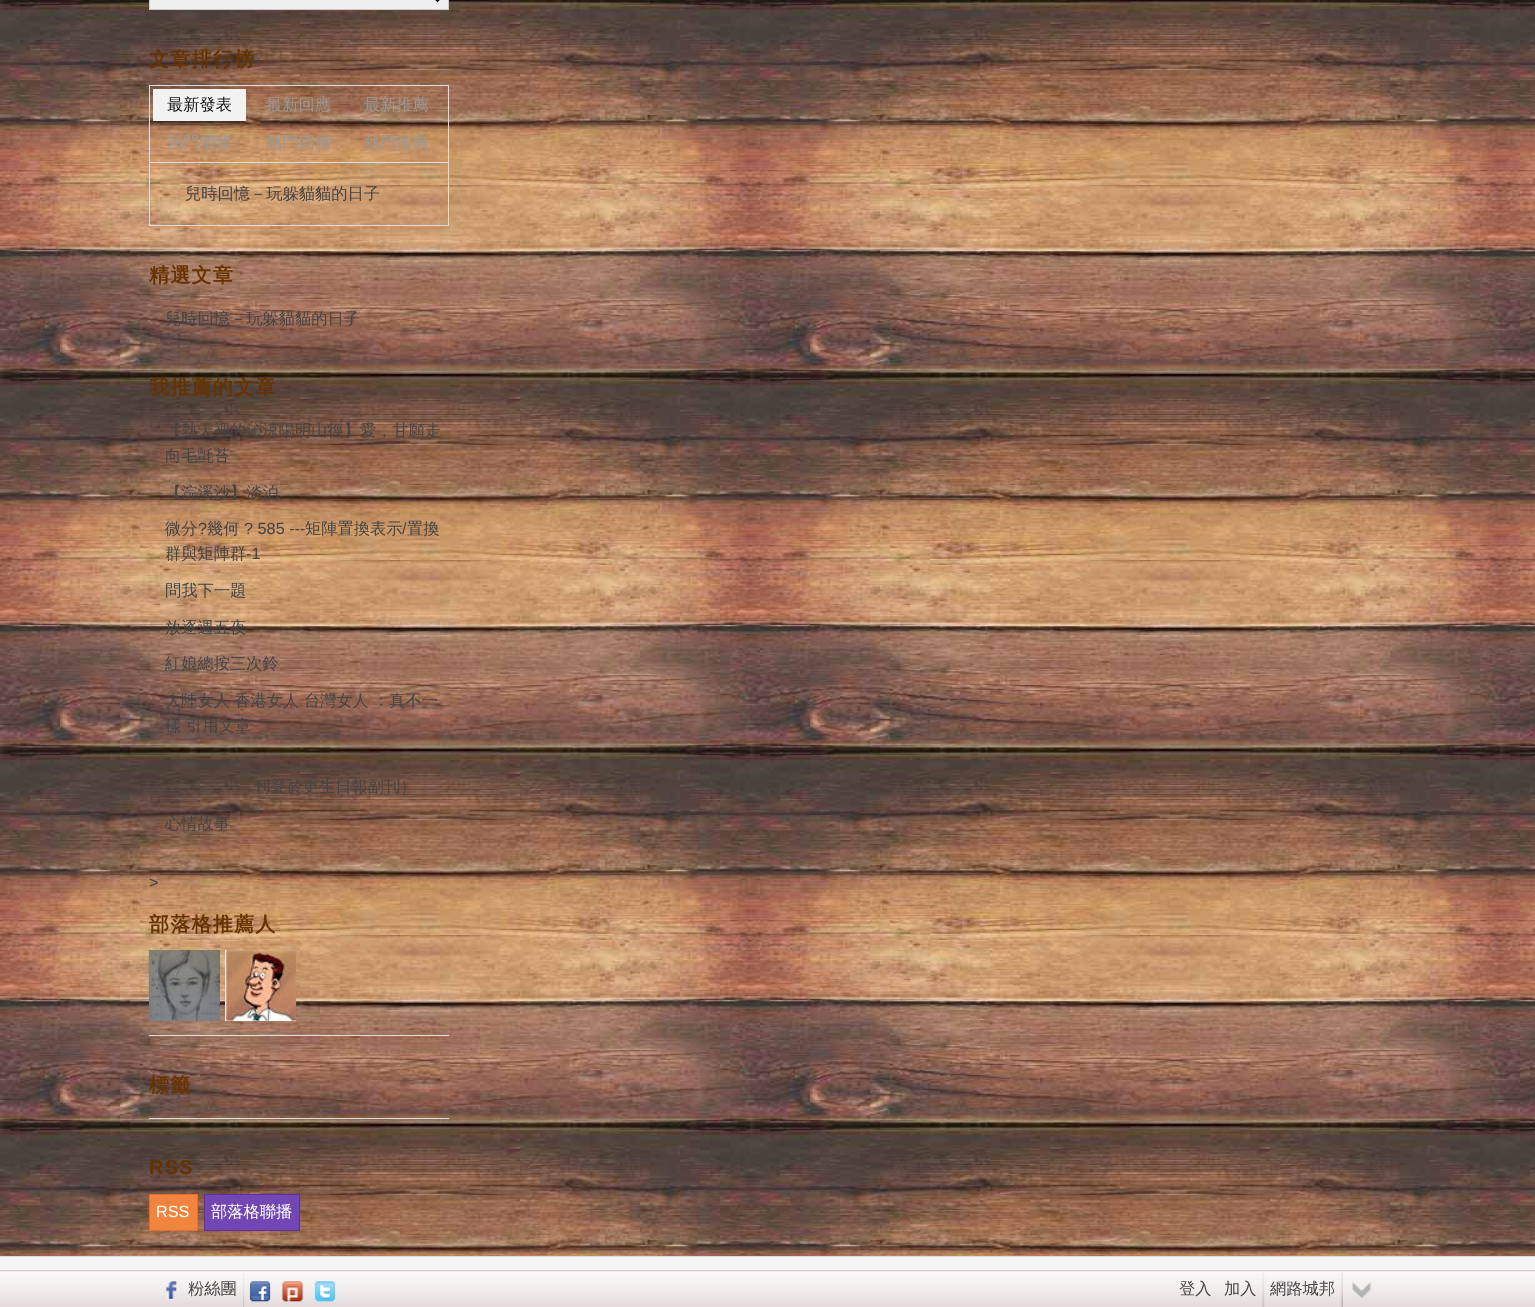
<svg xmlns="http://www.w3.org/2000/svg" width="1535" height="1307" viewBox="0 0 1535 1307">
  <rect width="100%" height="100%" fill="#ffffff"/>
  <image x="0" y="0" width="1535" height="1256" href="img1.png"/>
  <rect x="149.5" y="-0.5" width="299" height="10" fill="#efefef" stroke="#cccccc"/>
  <path d="M432.5-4.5L437.5 .5L442.5-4.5" fill="none" stroke="#000000" stroke-width="2.5"/>
  <text x="149" y="66" font-family="WenQuanYi Zen Hei" font-size="20" font-weight="bold" letter-spacing="1.25" fill="#663300">文章排行榜</text>
  <rect x="149.5" y="85.5" width="299" height="77" fill="none" stroke="#dddddd"/>
  <rect x="153" y="89" width="93" height="32" fill="#f2f2f2"/>
  <text x="167" y="110" font-family="WenQuanYi Zen Hei" font-size="16.25" font-weight="500" fill="#111111">最新發表</text>
  <text x="266" y="110" font-family="WenQuanYi Zen Hei" font-size="16.25" font-weight="500" fill="#999999">最新回應</text>
  <text x="364" y="110" font-family="WenQuanYi Zen Hei" font-size="16.25" font-weight="500" fill="#999999">最新推薦</text>
  <text x="167" y="148" font-family="WenQuanYi Zen Hei" font-size="16.25" font-weight="500" fill="#999999">熱門瀏覽</text>
  <text x="266" y="148" font-family="WenQuanYi Zen Hei" font-size="16.25" font-weight="500" fill="#999999">熱門回應</text>
  <text x="364" y="148" font-family="WenQuanYi Zen Hei" font-size="16.25" font-weight="500" fill="#999999">熱門推薦</text>
  <rect x="448" y="163" width="1" height="63" fill="#dddddd"/>
  <rect x="149" y="225" width="300" height="1" fill="#dddddd"/>
  <rect x="149" y="163" width="1" height="63" fill="#dddddd"/>
  <text x="185" y="199" font-family="WenQuanYi Zen Hei" font-size="16.25" font-weight="500" fill="#444444">兒時回憶－玩躲貓貓的日子</text>
  <text x="149" y="282" font-family="WenQuanYi Zen Hei" font-size="20" font-weight="bold" letter-spacing="1.25" fill="#663300">精選文章</text>
  <text x="165" y="324" font-family="WenQuanYi Zen Hei" font-size="16.25" font-weight="500" fill="#444444">兒時回憶－玩躲貓貓的日子</text>
  <text x="149" y="394" font-family="WenQuanYi Zen Hei" font-size="20" font-weight="bold" letter-spacing="1.25" fill="#663300">我推薦的文章</text>
  <text x="165" y="436" font-family="WenQuanYi Zen Hei" font-size="16.25" font-weight="500" fill="#444444">【熱天裡的沁涼陽明山徑】愛，甘願走</text>
  <text x="165" y="461" font-family="WenQuanYi Zen Hei" font-size="16.25" font-weight="500" fill="#444444">向毛氈苔</text>
  <text x="165" y="498" font-family="WenQuanYi Zen Hei" font-size="16.25" font-weight="500" fill="#444444">【浣溪沙】淡泊</text>
  <text x="165" y="534" font-family="WenQuanYi Zen Hei" font-size="16.25" font-weight="500" fill="#444444">微分</text>
  <text x="198" y="534" font-family="Liberation Sans" font-size="16.25" fill="#444444">?</text>
  <text x="207" y="534" font-family="WenQuanYi Zen Hei" font-size="16.25" font-weight="500" fill="#444444">幾何</text>
  <text x="244" y="534" font-family="Liberation Sans" font-size="16.25" fill="#444444">? 585 ---</text>
  <text x="305" y="534" font-family="WenQuanYi Zen Hei" font-size="16.25" font-weight="500" fill="#444444">矩陣置換表示</text>
  <text x="402" y="534" font-family="Liberation Sans" font-size="16.25" fill="#444444">/</text>
  <text x="407" y="534" font-family="WenQuanYi Zen Hei" font-size="16.25" font-weight="500" fill="#444444">置換</text>
  <text x="165" y="559" font-family="WenQuanYi Zen Hei" font-size="16.25" font-weight="500" fill="#444444">群與矩陣群</text>
  <text x="246" y="559" font-family="Liberation Sans" font-size="16.25" fill="#444444">-1</text>
  <text x="165" y="596" font-family="WenQuanYi Zen Hei" font-size="16.25" font-weight="500" fill="#444444">問我下一題</text>
  <text x="165" y="633" font-family="WenQuanYi Zen Hei" font-size="16.25" font-weight="500" fill="#444444">放逐週五夜</text>
  <text x="165" y="669" font-family="WenQuanYi Zen Hei" font-size="16.25" font-weight="500" fill="#444444">紅娘總按三次鈴</text>
  <text x="165" y="706" word-spacing="-0.5" font-family="WenQuanYi Zen Hei" font-size="16.25" font-weight="500" fill="#444444">大陸女人 香港女人 台灣女人 ：真不一</text>
  <text x="165" y="731" font-family="WenQuanYi Zen Hei" font-size="16.25" font-weight="500" fill="#444444">樣</text>
  <text x="186" y="731" font-family="WenQuanYi Zen Hei" font-size="16.25" font-weight="500" fill="#444444">引用文章</text>
  <text x="254" y="792" font-family="WenQuanYi Zen Hei" font-size="16.25" font-weight="500" fill="#444444">刊登於更生日報副刊）</text>
  <text x="165" y="829" font-family="WenQuanYi Zen Hei" font-size="16.25" font-weight="500" fill="#444444">心情故事</text>
  <text x="149" y="888" font-family="Liberation Sans" font-size="16.25" fill="#444444">&gt;</text>
  <text x="149" y="931" font-family="WenQuanYi Zen Hei" font-size="20" font-weight="bold" letter-spacing="1.25" fill="#663300">部落格推薦人</text>
  <rect x="149" y="1035" width="300" height="1" fill="#dddddd"/>
  <image x="148" y="950" width="72" height="72" href="img2.png"/>
  <image x="225" y="950" width="72" height="72" href="img3.png"/>
  <text x="149" y="1092" font-family="WenQuanYi Zen Hei" font-size="20" font-weight="bold" letter-spacing="1.25" fill="#663300">標籤</text>
  <rect x="149" y="1118" width="300" height="1" fill="#dddddd"/>
  <text x="149" y="1174" font-family="Liberation Sans" font-size="20" font-weight="bold" letter-spacing="1.25" fill="#663300">RSS</text>
  <rect x="149.5" y="1194.5" width="48" height="36" fill="#f2853d" stroke="#ed6b2a"/>
  <text x="156" y="1217" font-family="Liberation Sans" font-size="16.25" fill="#ffffff">RSS</text>
  <rect x="204.5" y="1194.5" width="95" height="36" fill="#7247b3" stroke="#59329e"/>
  <text x="211" y="1217" font-family="WenQuanYi Zen Hei" font-size="16.25" font-weight="500" fill="#ffffff">部落格聯播</text>
  <rect x="0" y="1257" width="1535" height="13" fill="#f5f5f5"/>
  <rect x="0" y="1256" width="1535" height="1" fill="#dddddd"/>
  <image x="0" y="1270" width="1535" height="37" href="img4.png"/>
  <image x="166" y="1281" width="11" height="18" href="img5.png"/>
  <text x="188" y="1294" font-family="WenQuanYi Zen Hei" font-size="16.25" font-weight="500" fill="#444444">粉絲團</text>
  <image x="243" y="1272" width="2" height="35" href="img6.png"/>
  <image x="249" y="1281" width="22" height="21" href="img7.png"/>
  <image x="281" y="1281" width="23" height="21" href="img8.png"/>
  <image x="314" y="1281" width="22" height="21" href="img9.png"/>
  <text x="1179" y="1294" font-family="WenQuanYi Zen Hei" font-size="16.25" font-weight="500" fill="#444444">登入</text>
  <text x="1224" y="1294" font-family="WenQuanYi Zen Hei" font-size="16.25" font-weight="500" fill="#444444">加入</text>
  <image x="1262" y="1272" width="3" height="35" href="img10.png"/>
  <text x="1270" y="1294" font-family="WenQuanYi Zen Hei" font-size="16.25" font-weight="500" fill="#444444">網路城邦</text>
  <image x="1340" y="1272" width="3" height="35" href="img11.png"/>
  <image x="1352" y="1282" width="20" height="17" href="img12.png"/>
</svg>
